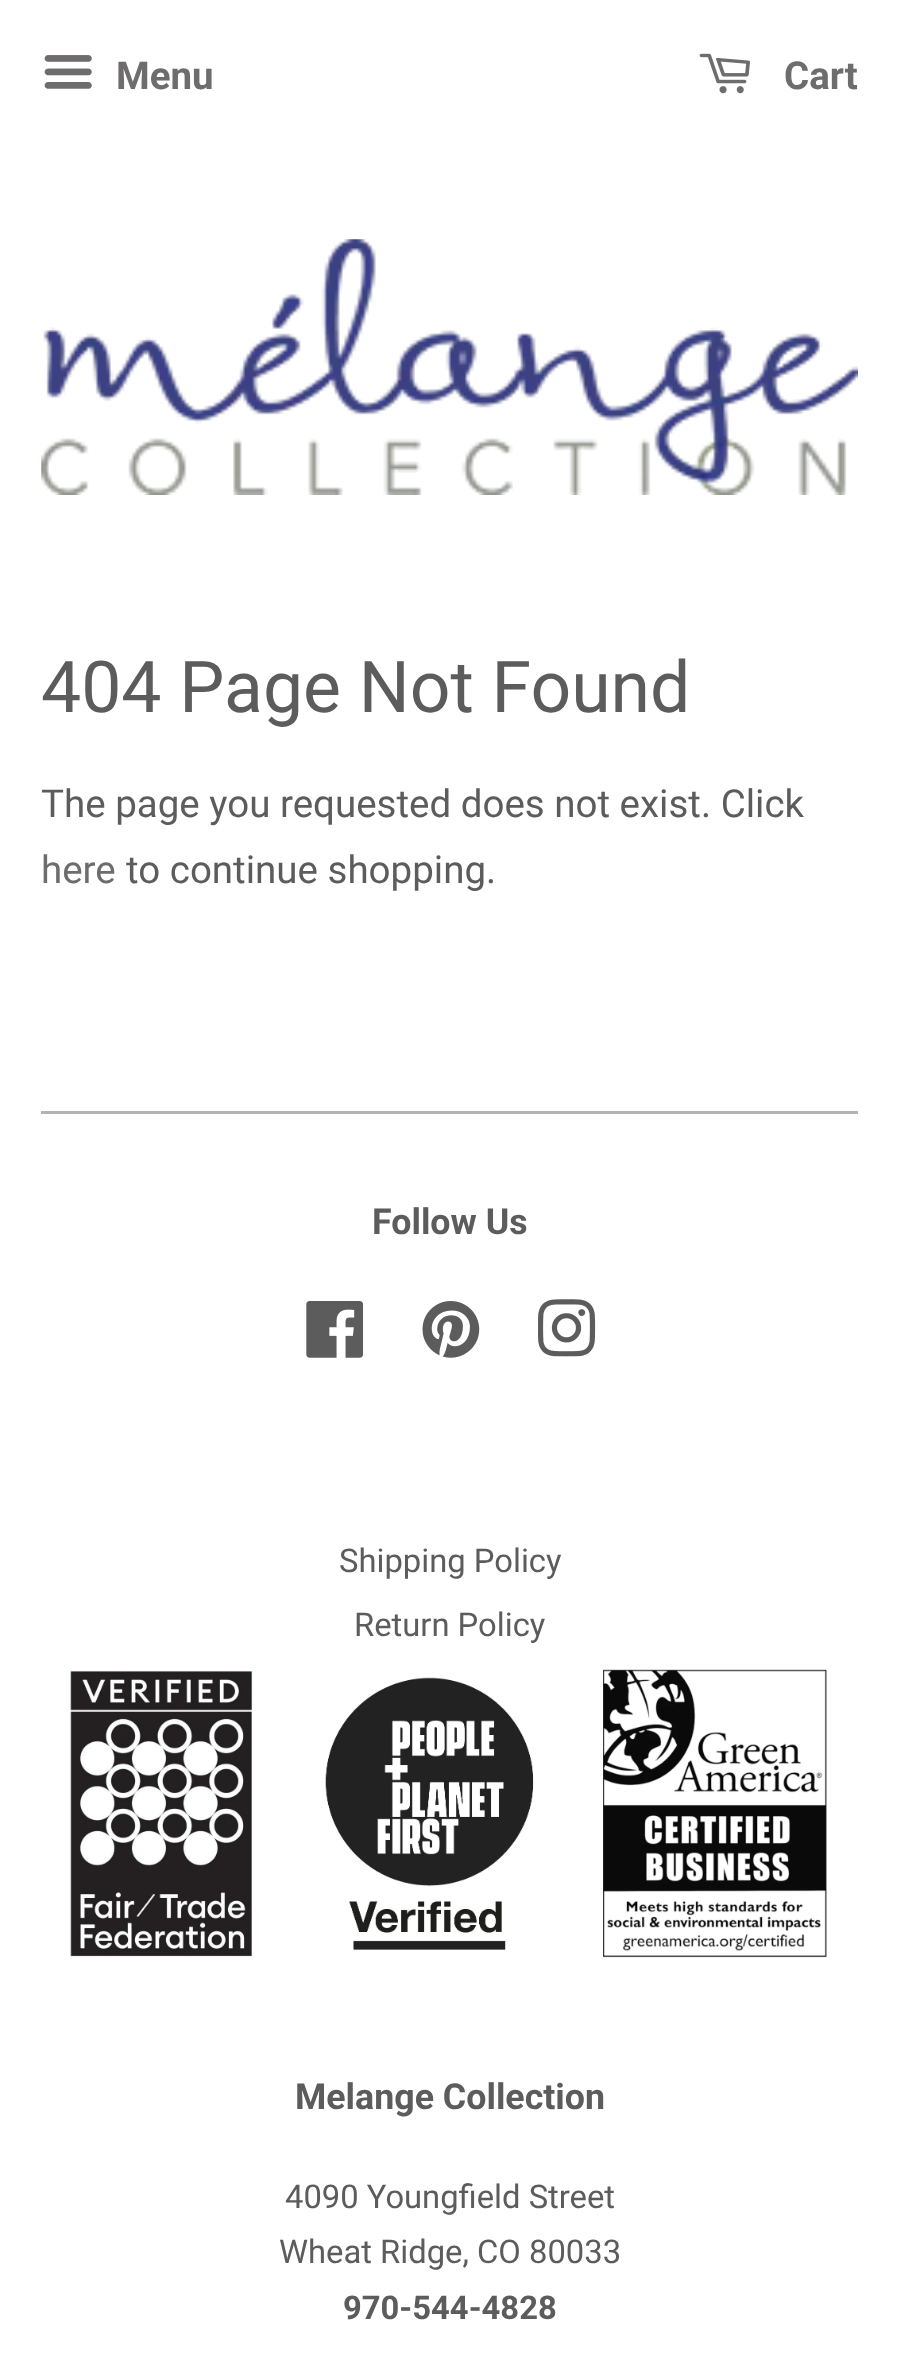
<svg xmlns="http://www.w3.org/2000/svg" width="898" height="2357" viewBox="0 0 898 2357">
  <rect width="100%" height="100%" fill="#ffffff"/>
  <image x="44" y="55" width="48" height="34" href="img1.png"/>
  <text x="116" y="89" font-family="Roboto" font-size="38.5" font-weight="bold" fill="#6e6c6c">Menu</text>
  <image x="699" y="53" width="51" height="41" href="img2.png"/>
  <text x="784" y="89" font-family="Roboto" font-size="38.5" font-weight="bold" fill="#6e6c6c">Cart</text>
  <image x="41" y="239" width="817" height="256" href="img3.png"/>
  <text x="41" y="712" font-family="Roboto" font-size="71.5" fill="#5c5c5c">404 Page Not Found</text>
  <text x="41" y="817" font-family="Roboto" font-size="38.5" fill="#5c5c5c">The page you requested does not exist. Click</text>
  <text x="41" y="883" font-family="Roboto" font-size="38.5" fill="#6e6c6c">here</text>
  <text x="126" y="883" font-family="Roboto" font-size="38.5" fill="#5c5c5c">to continue shopping.</text>
  <rect x="41" y="1111" width="817" height="3" fill="#b3b3b3"/>
  <text x="372" y="1234" font-family="Roboto" font-size="35.75" font-weight="bold" fill="#5c5c5c">Follow Us</text>
  <image x="306" y="1301" width="58" height="57" href="img4.png"/>
  <image x="422" y="1301" width="58" height="57" href="img5.png"/>
  <image x="538" y="1299" width="58" height="58" href="img6.png"/>
  <text x="339" y="1572" font-family="Roboto" font-size="32.75" fill="#5c5c5c">Shipping Policy</text>
  <text x="354" y="1636" font-family="Roboto" font-size="32.75" fill="#5c5c5c">Return Policy</text>
  <image x="70" y="1669" width="757" height="289" href="img7.png"/>
  <text x="295" y="2109" font-family="Roboto" font-size="35.75" font-weight="bold" fill="#5c5c5c">Melange Collection</text>
  <text x="285" y="2208" font-family="Roboto" font-size="32.75" fill="#5c5c5c">4090 Youngfield Street</text>
  <text x="279" y="2263" font-family="Roboto" font-size="32.75" fill="#5c5c5c">Wheat Ridge, CO 80033</text>
  <text x="343" y="2319" font-family="Roboto" font-size="32.75" font-weight="bold" fill="#5c5c5c">970-544-4828</text>
</svg>
